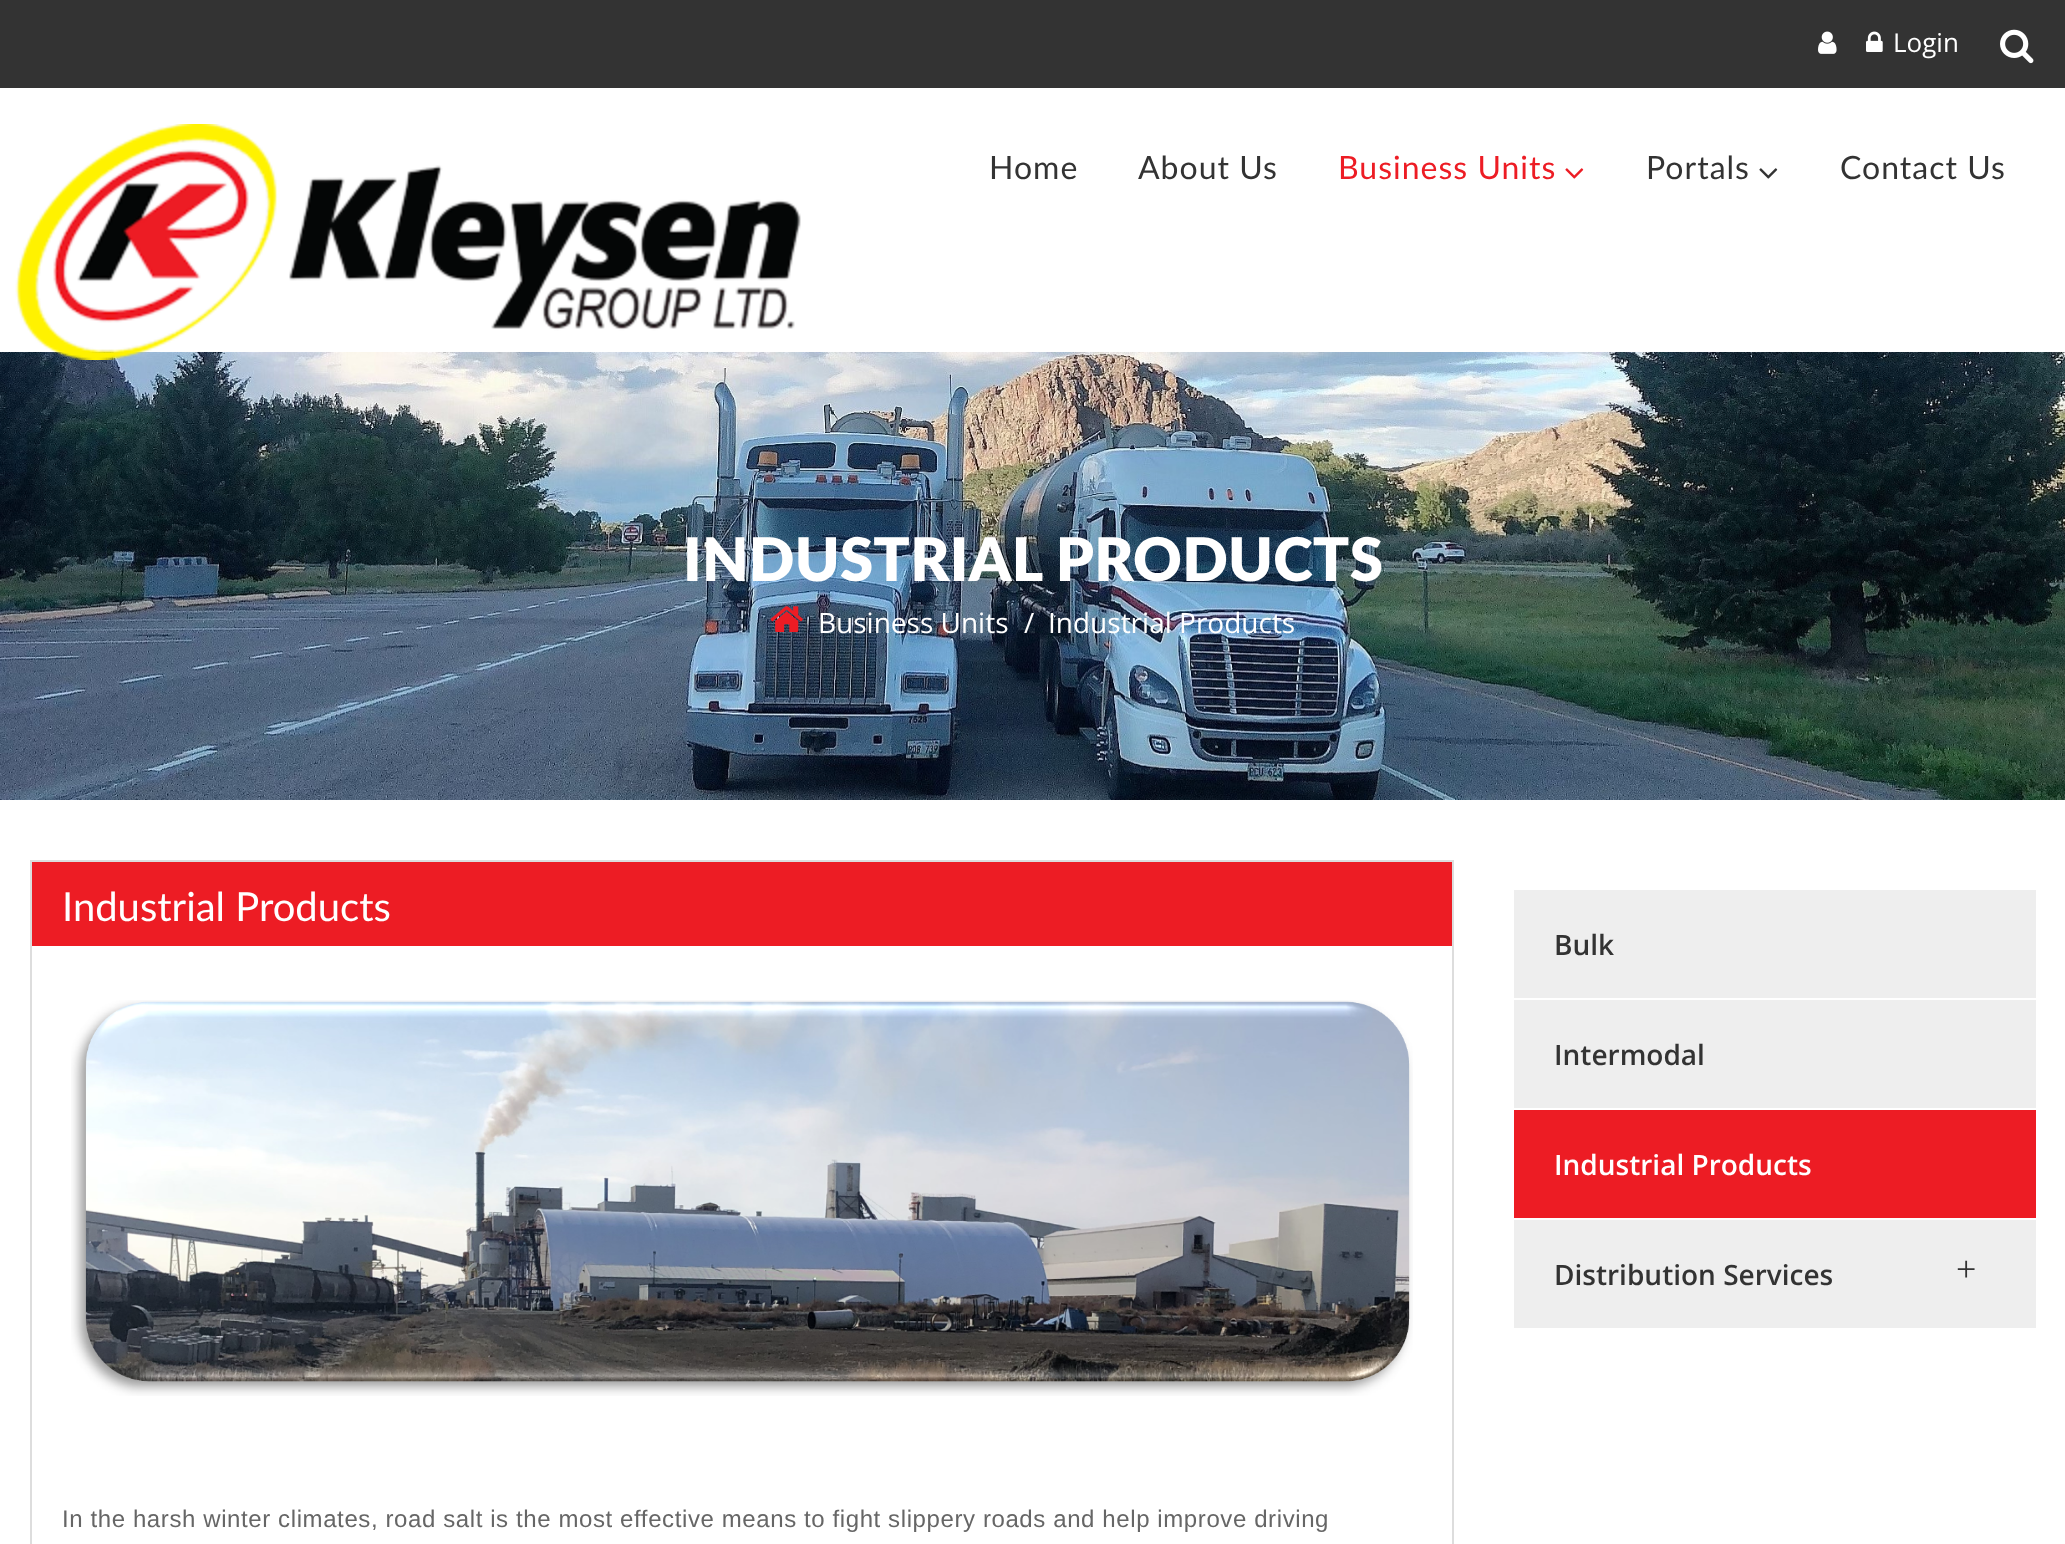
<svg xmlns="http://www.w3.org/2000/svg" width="2065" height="1544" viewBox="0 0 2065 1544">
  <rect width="100%" height="100%" fill="#ffffff"/>
  <rect x="0" y="0" width="2065" height="88" fill="#333333"/>
  <image x="1818" y="31" width="19" height="23" href="img1.png"/>
  <image x="1866" y="31" width="17" height="21" href="img2.png"/>
  <text x="1893" y="52" font-family="Open Sans" font-size="26" fill="#ffffff">Login</text>
  <image x="2000" y="29" width="34" height="35" href="img3.png"/>
  <image x="0" y="352" width="2065" height="448" href="img7.png"/>
  <image x="15" y="124" width="786" height="236" href="img4.png"/>
  <text x="989" y="179" font-family="Lato" font-size="32" letter-spacing="1" fill="#333333">Home</text>
  <text x="1138" y="179" font-family="Lato" font-size="32" letter-spacing="1" fill="#333333">About Us</text>
  <text x="1338" y="179" font-family="Lato" font-size="32" letter-spacing="1" fill="#ed1c24">Business Units</text>
  <image x="1565" y="168" width="19" height="11" href="img5.png"/>
  <text x="1646" y="179" font-family="Lato" font-size="32" letter-spacing="1" fill="#333333">Portals</text>
  <image x="1759" y="168" width="19" height="11" href="img6.png"/>
  <text x="1840" y="179" font-family="Lato" font-size="32" letter-spacing="1" fill="#333333">Contact Us</text>
  <text x="683" y="581" font-family="Lato" font-size="60" font-weight="800" letter-spacing="0.25" fill="#ffffff">INDUSTRIAL PRODUCTS</text>
  <image x="770" y="606" width="33" height="26" href="img8.png"/>
  <text x="818" y="633" font-family="Open Sans" font-size="28" fill="#ffffff">Business Units</text>
  <text x="1024" y="633" font-family="Open Sans" font-size="28" fill="#ffffff">/</text>
  <text x="1048" y="633" font-family="Open Sans" font-size="28" fill="#ffffff">Industrial Products</text>
  <rect x="31" y="861" width="1422" height="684" fill="none" stroke="#dddddd" stroke-width="2"/>
  <rect x="32" y="862" width="1420" height="84" fill="#ed1c24"/>
  <text x="62" y="921" font-family="Lato" font-size="40" fill="#ffffff">Industrial Products</text>
  <image x="71" y="1000" width="1342" height="396" href="img9.png"/>
  <text x="62" y="1527" font-family="Liberation Sans" font-size="24" letter-spacing="0.6" fill="#666666">In the harsh winter climates, road salt is the most effective means to fight slippery roads and help improve driving</text>
  <rect x="1514" y="890" width="522" height="438" fill="#eeeeee"/>
  <text x="1554" y="955" font-family="Open Sans" font-size="28" font-weight="600" fill="#333333">Bulk</text>
  <rect x="1514" y="998" width="522" height="2" fill="#ffffff"/>
  <text x="1554" y="1065" font-family="Open Sans" font-size="28" font-weight="600" fill="#333333">Intermodal</text>
  <rect x="1514" y="1110" width="522" height="108" fill="#ed1c24"/>
  <rect x="1514" y="1108" width="522" height="2" fill="#ffffff"/>
  <text x="1554" y="1175" font-family="Open Sans" font-size="28" font-weight="600" fill="#ffffff">Industrial Products</text>
  <rect x="1514" y="1218" width="522" height="2" fill="#ffffff"/>
  <text x="1554" y="1285" font-family="Open Sans" font-size="28" font-weight="600" fill="#333333">Distribution Services</text>
  <text x="1956" y="1281" font-family="Liberation Serif" font-size="36" fill="#333333">+</text>
</svg>
